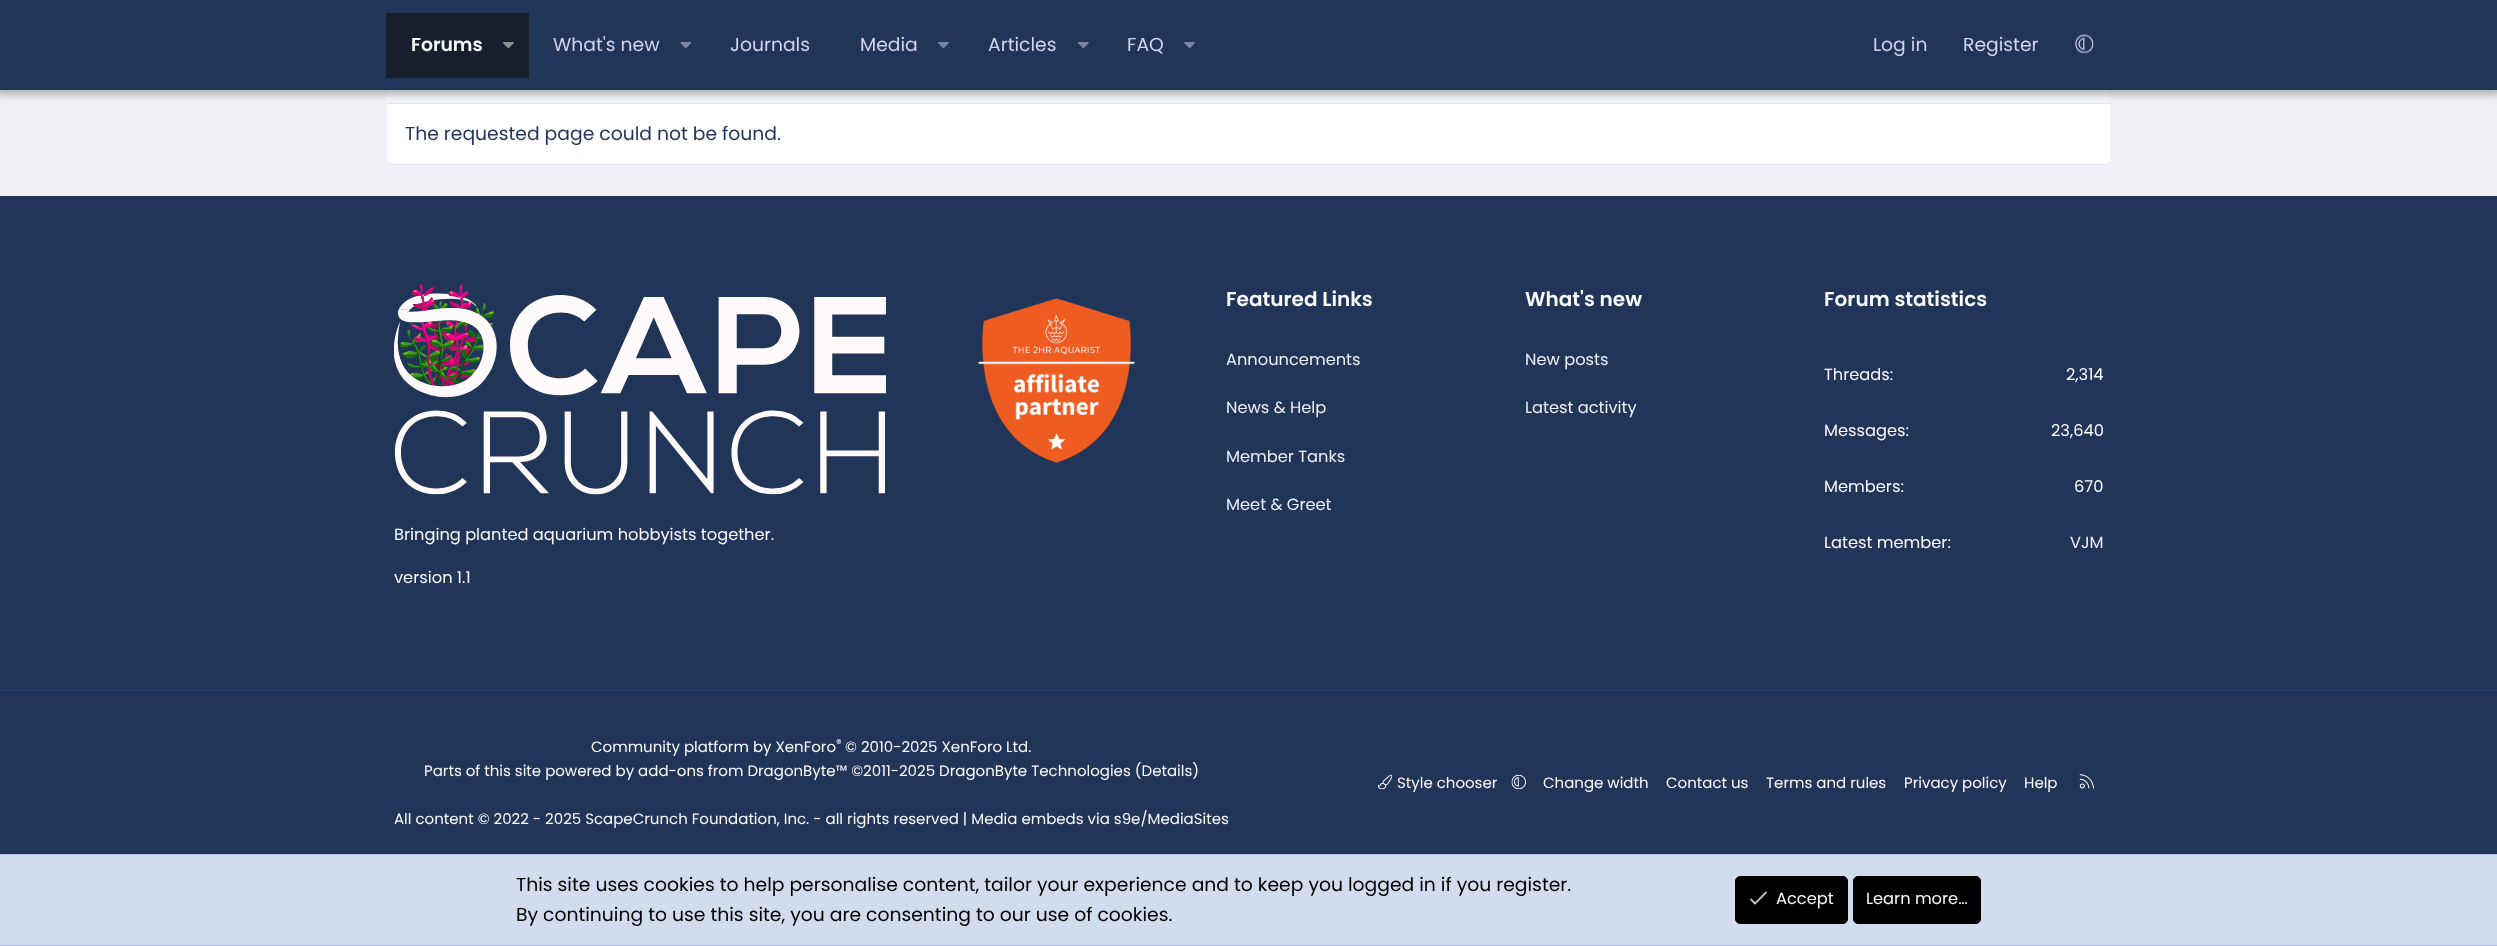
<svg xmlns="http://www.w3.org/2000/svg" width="2497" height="946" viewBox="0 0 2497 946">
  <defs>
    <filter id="blur1" x="-50%" y="-200%" width="200%" height="500%"><feGaussianBlur stdDeviation="5"/></filter>
  </defs>
  <rect width="100%" height="100%" fill="#eff1f6"/>
  <rect x="386" y="35" width="1725" height="130" rx="5" fill="#ffffff"/>
  <path d="M2109.5 163L2106 164.5H391L388 163" fill="none" stroke="#e1e6ef" stroke-width="1.2"/>
  <path d="M388 163L387 160.5V60C387 51.5 383.5 35.5 391 35.5H2106C2114 35.5 2110.5 51.5 2110.5 60V160.5L2109.5 163" fill="none" stroke="#eff1f6" stroke-width="1.2"/>
  <rect x="388" y="90" width="1722" height="13" fill="#f4f6fa"/>
  <rect x="388" y="103" width="1722" height="1" fill="#e1e6ef"/>
  <rect x="-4" y="-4" width="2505" height="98" fill="#000000" fill-opacity="0.3" filter="url(#blur1)"/>
  <rect x="0" y="0" width="2497" height="90" fill="#213559"/>
  <rect x="386" y="13" width="143" height="65" fill="#161f2b"/>
  <text x="411" y="51" font-family="Poppins" font-size="18.75" font-weight="600" fill="#fafafa">Forums</text>
  <image x="503" y="42" width="11" height="7" href="img1.png"/>
  <text x="553" y="51" font-family="Poppins" font-size="18.75" fill="#d0d5ec">What's new</text>
  <image x="680" y="42" width="11" height="7" href="img2.png"/>
  <text x="730" y="51" font-family="Poppins" font-size="18.75" fill="#d0d5ec">Journals</text>
  <text x="860" y="51" font-family="Poppins" font-size="18.75" fill="#d0d5ec">Media</text>
  <image x="938" y="42" width="11" height="7" href="img3.png"/>
  <text x="988" y="51" font-family="Poppins" font-size="18.75" fill="#d0d5ec">Articles</text>
  <image x="1078" y="42" width="11" height="7" href="img3.png"/>
  <text x="1127" y="51" font-family="Poppins" font-size="18.75" fill="#d0d5ec">FAQ</text>
  <image x="1184" y="42" width="11" height="7" href="img4.png"/>
  <text x="1873" y="51" font-family="Poppins" font-size="18.75" fill="#d0d5ec">Log in</text>
  <text x="1963" y="51" font-family="Poppins" font-size="18.75" fill="#d0d5ec">Register</text>
  <image x="2075" y="34" width="19" height="20" href="img5.png"/>
  <text x="405" y="140" font-family="Poppins" font-size="18.75" fill="#24355c">The requested page could not be found.</text>
  <rect x="0" y="196" width="2497" height="494" fill="#213559"/>
  <image x="978" y="298" width="157" height="165" href="img6.png"/>
  <text x="1226" y="306" font-family="Poppins" font-size="20" font-weight="600" fill="#fafafa">Featured Links</text>
  <text x="1226" y="365" font-family="Poppins" font-size="16.25" fill="#edf0f5">Announcements</text>
  <text x="1226" y="413" font-family="Poppins" font-size="16.25" fill="#edf0f5">News &amp; Help</text>
  <text x="1226" y="462" font-family="Poppins" font-size="16.25" fill="#edf0f5">Member Tanks</text>
  <text x="1226" y="510" font-family="Poppins" font-size="16.25" fill="#edf0f5">Meet &amp; Greet</text>
  <text x="1525" y="306" font-family="Poppins" font-size="20" font-weight="600" fill="#fafafa">What's new</text>
  <text x="1525" y="365" font-family="Poppins" font-size="16.25" fill="#edf0f5">New posts</text>
  <text x="1525" y="413" font-family="Poppins" font-size="16.25" fill="#edf0f5">Latest activity</text>
  <text x="1824" y="306" font-family="Poppins" font-size="20" font-weight="600" fill="#fafafa">Forum statistics</text>
  <text x="1824" y="380" font-family="Poppins" font-size="16.25" fill="#fafafa">Threads:</text>
  <text x="2066" y="380" font-family="Poppins" font-size="16.25" fill="#fafafa">2,314</text>
  <text x="1824" y="436" font-family="Poppins" font-size="16.25" fill="#fafafa">Messages:</text>
  <text x="2051" y="436" font-family="Poppins" font-size="16.25" fill="#fafafa">23,640</text>
  <text x="1824" y="492" font-family="Poppins" font-size="16.25" fill="#fafafa">Members:</text>
  <text x="2074" y="492" font-family="Poppins" font-size="16.25" fill="#fafafa">670</text>
  <text x="1824" y="548" font-family="Poppins" font-size="16.25" fill="#fafafa">Latest member:</text>
  <text x="2070" y="548" font-family="Poppins" font-size="16.25" fill="#edf0f5">VJM</text>
  <image x="394" y="283" width="492" height="212" href="img7.png"/>
  <text x="394" y="540" font-family="Poppins" font-size="16.25" fill="#fafafa">Bringing planted aquarium hobbyists together.</text>
  <text x="394" y="583" font-family="Poppins" font-size="16.25" fill="#fafafa">version 1.1</text>
  <rect x="0" y="691" width="2497" height="163" fill="#213559"/>
  <rect x="0" y="690" width="2497" height="1" fill="#28406c"/>
  <text x="591" y="752" font-family="Poppins" font-size="15" fill="#fafafa">Community platform by XenForo</text>
  <text x="836" y="747" font-family="Poppins" font-size="11" fill="#fafafa">®</text>
  <text x="845" y="752" font-family="Poppins" font-size="15" fill="#fafafa">© 2010-2025 XenForo Ltd.</text>
  <text x="424" y="776" font-family="Poppins" font-size="15" fill="#fafafa">Parts of this site powered by add-ons from DragonByte™ ©2011-2025 DragonByte Technologies (Details)</text>
  <text x="394" y="824" font-family="Poppins" font-size="15" fill="#fafafa">All content © 2022 - 2025 ScapeCrunch Foundation, Inc. - all rights reserved | Media embeds via s9e/MediaSites</text>
  <image x="1377" y="774" width="16" height="16" href="img8.png"/>
  <text x="1397" y="788" font-family="Poppins" font-size="15" fill="#fafafa">Style chooser</text>
  <image x="1511" y="774" width="15" height="16" href="img9.png"/>
  <text x="1543" y="788" font-family="Poppins" font-size="15" fill="#fafafa">Change width</text>
  <text x="1666" y="788" font-family="Poppins" font-size="15" fill="#fafafa">Contact us</text>
  <text x="1766" y="788" font-family="Poppins" font-size="15" fill="#fafafa">Terms and rules</text>
  <text x="1904" y="788" font-family="Poppins" font-size="15" fill="#fafafa">Privacy policy</text>
  <text x="2024" y="788" font-family="Poppins" font-size="15" fill="#fafafa">Help</text>
  <image x="2079" y="774" width="15" height="15" href="img10.png"/>
  <rect x="0" y="855" width="2497" height="90" fill="#d3dcee"/>
  <rect x="0" y="854" width="2497" height="1" fill="#afc0df"/>
  <rect x="0" y="945" width="2497" height="1" fill="#afc0df"/>
  <text x="516" y="891" font-family="Poppins" font-size="18.75" fill="#000000">This site uses cookies to help personalise content, tailor your experience and to keep you logged in if you register.</text>
  <text x="516" y="921" font-family="Poppins" font-size="18.75" fill="#000000">By continuing to use this site, you are consenting to our use of cookies.</text>
  <rect x="1735.5" y="876.5" width="112" height="47" rx="4.5" fill="#000000" stroke="#000000"/>
  <image x="1749" y="891" width="19" height="14" href="img11.png"/>
  <text x="1776" y="904" font-family="Poppins" font-size="16.25" fill="#fafafa">Accept</text>
  <rect x="1853.5" y="876.5" width="127" height="47" rx="4.5" fill="#000000" stroke="#000000"/>
  <text x="1866" y="904" font-family="Poppins" font-size="16.25" fill="#fafafa">Learn more…</text>
</svg>
